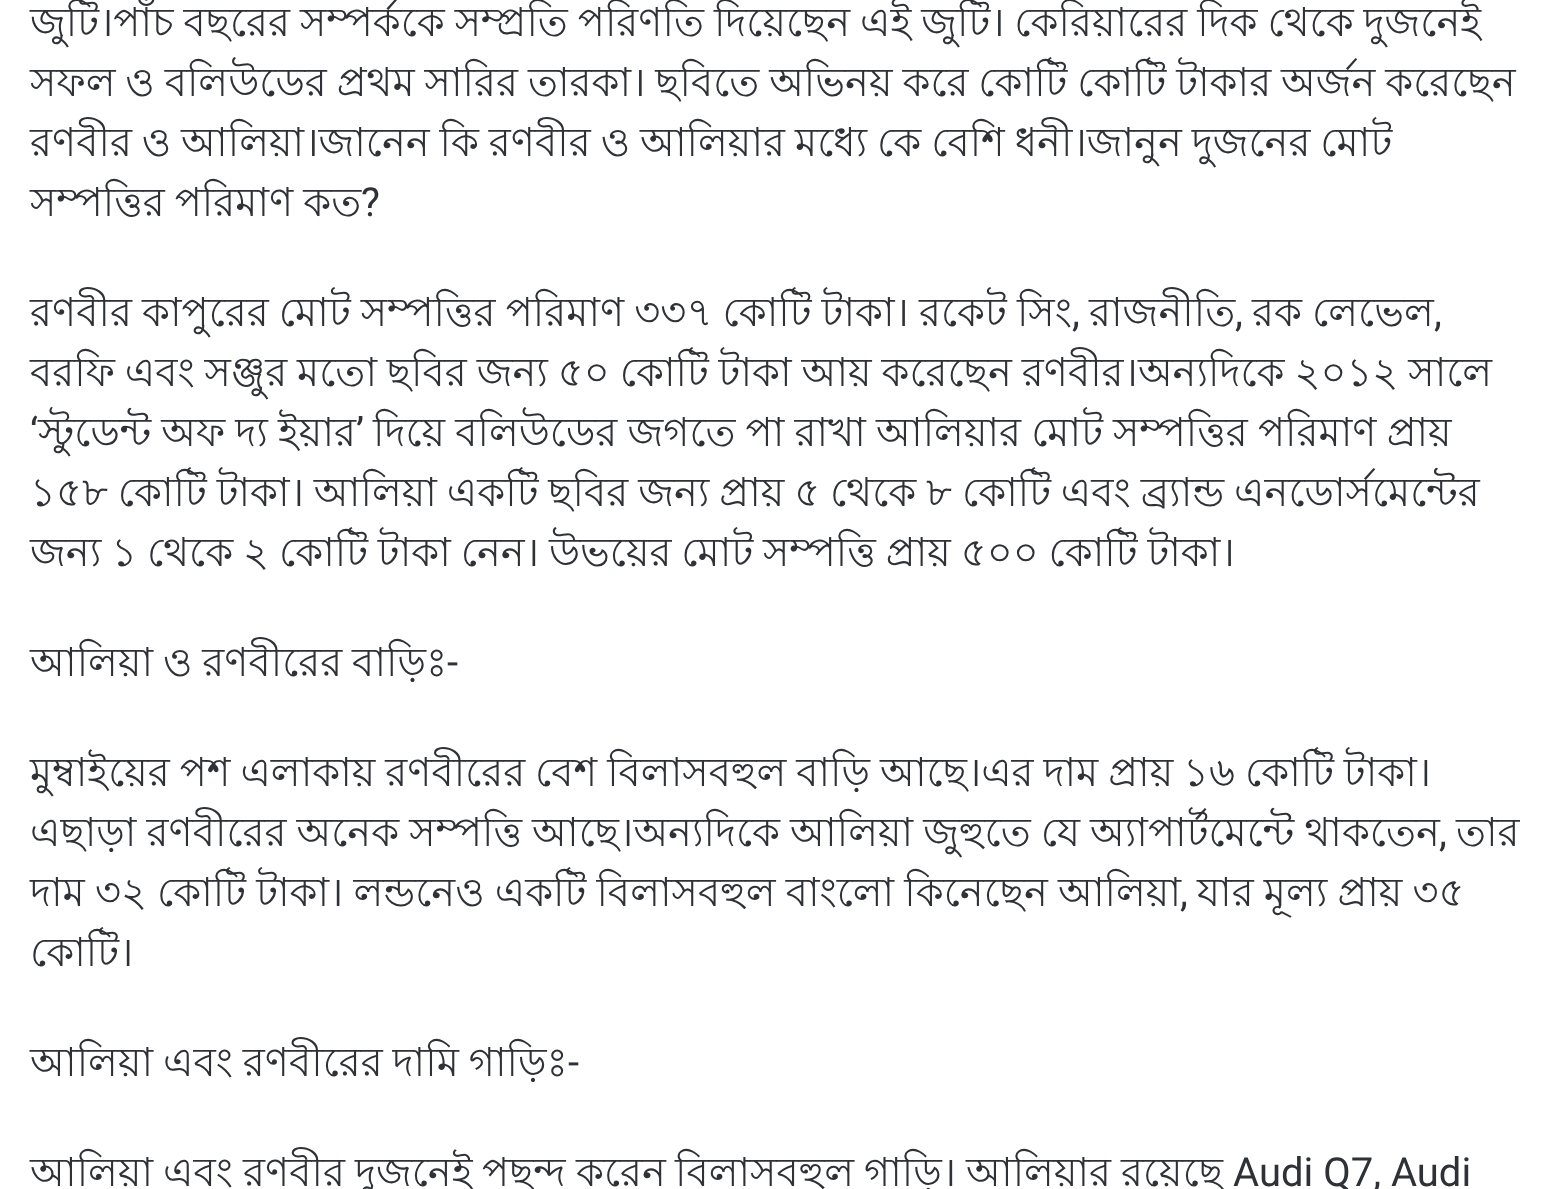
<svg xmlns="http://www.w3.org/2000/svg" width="1549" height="1189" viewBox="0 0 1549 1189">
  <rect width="100%" height="100%" fill="#ffffff"/>
  <text x="30" y="36" word-spacing="-1.2" font-family="Lohit Bengali" font-size="40" fill="#2e3136">জুটি।পাঁচ বছরের সম্পর্ককে সম্প্রতি পরিণতি দিয়েছেন এই জুটি। কেরিয়ারের দিক থেকে দুজনেই</text>
  <text x="30" y="96" word-spacing="-1.2" font-family="Lohit Bengali" font-size="40" fill="#2e3136">সফল ও বলিউডের প্রথম সারির তারকা। ছবিতে অভিনয় করে কোটি কোটি টাকার অর্জন করেছেন</text>
  <text x="30" y="156" word-spacing="-1.2" font-family="Lohit Bengali" font-size="40" fill="#2e3136">রণবীর ও আলিয়া।জানেন কি রণবীর ও আলিয়ার মধ্যে কে বেশি ধনী।জানুন দুজনের মোট</text>
  <text x="30" y="216" word-spacing="-1.2" font-family="Lohit Bengali" font-size="40" fill="#2e3136">সম্পত্তির পরিমাণ কত</text>
  <text x="361" y="216" font-family="Roboto" font-size="40" fill="#2e3136">?</text>
  <text x="30" y="326" word-spacing="-1" font-family="Lohit Bengali" font-size="40" fill="#2e3136">রণবীর কাপুরের মোট সম্পত্তির পরিমাণ ৩৩৭ কোটি টাকা। রকেট সিং</text>
  <text x="1072" y="326" font-family="Roboto" font-size="40" fill="#2e3136">,</text>
  <text x="1089" y="326" font-family="Lohit Bengali" font-size="40" fill="#2e3136">রাজনীতি</text>
  <text x="1235" y="326" font-family="Roboto" font-size="40" fill="#2e3136">,</text>
  <text x="1252" y="326" word-spacing="-1" font-family="Lohit Bengali" font-size="40" fill="#2e3136">রক লেভেল</text>
  <text x="1434" y="326" font-family="Roboto" font-size="40" fill="#2e3136">,</text>
  <text x="30" y="386" word-spacing="-1.2" font-family="Lohit Bengali" font-size="40" fill="#2e3136">বরফি এবং সঞ্জুর মতো ছবির জন্য ৫০ কোটি টাকা আয় করেছেন রণবীর।অন্যদিকে ২০১২ সালে</text>
  <text x="30" y="446" font-family="Roboto" font-size="40" fill="#2e3136">‘</text>
  <text x="38" y="446" word-spacing="-1" font-family="Lohit Bengali" font-size="40" fill="#2e3136">স্টুডেন্ট অফ দ্য ইয়ার</text>
  <text x="373" y="446" word-spacing="-1" font-family="Lohit Bengali" font-size="40" fill="#2e3136">দিয়ে বলিউডের জগতে পা রাখা আলিয়ার মোট সম্পত্তির পরিমাণ প্রায়</text>
  <text x="356" y="446" font-family="Roboto" font-size="40" fill="#2e3136">’</text>
  <text x="30" y="506" word-spacing="-1.2" font-family="Lohit Bengali" font-size="40" fill="#2e3136">১৫৮ কোটি টাকা। আলিয়া একটি ছবির জন্য প্রায় ৫ থেকে ৮ কোটি এবং ব্র্যান্ড এনডোর্সমেন্টের</text>
  <text x="30" y="566" word-spacing="-1.2" font-family="Lohit Bengali" font-size="40" fill="#2e3136">জন্য ১ থেকে ২ কোটি টাকা নেন। উভয়ের মোট সম্পত্তি প্রায় ৫০০ কোটি টাকা।</text>
  <text x="30" y="676" word-spacing="-1.2" font-family="Lohit Bengali" font-size="40" fill="#2e3136">আলিয়া ও রণবীরের বাড়িঃ</text>
  <text x="447" y="676" font-family="Roboto" font-size="40" fill="#2e3136">-</text>
  <text x="30" y="786" word-spacing="-1.2" font-family="Lohit Bengali" font-size="40" fill="#2e3136">মুম্বাইয়ের পশ এলাকায় রণবীরের বেশ বিলাসবহুল বাড়ি আছে।এর দাম প্রায় ১৬ কোটি টাকা।</text>
  <text x="30" y="846" word-spacing="-1" font-family="Lohit Bengali" font-size="40" fill="#2e3136">এছাড়া রণবীরের অনেক সম্পত্তি আছে।অন্যদিকে আলিয়া জুহুতে যে অ্যাপার্টমেন্টে থাকতেন</text>
  <text x="1439" y="846" font-family="Roboto" font-size="40" fill="#2e3136">,</text>
  <text x="1456" y="846" font-family="Lohit Bengali" font-size="40" fill="#2e3136">তার</text>
  <text x="30" y="906" word-spacing="-1" font-family="Lohit Bengali" font-size="40" fill="#2e3136">দাম ৩২ কোটি টাকা। লন্ডনেও একটি বিলাসবহুল বাংলো কিনেছেন আলিয়া</text>
  <text x="1180" y="906" font-family="Roboto" font-size="40" fill="#2e3136">,</text>
  <text x="1197" y="906" word-spacing="-1" font-family="Lohit Bengali" font-size="40" fill="#2e3136">যার মূল্য প্রায় ৩৫</text>
  <text x="30" y="966" font-family="Lohit Bengali" font-size="40" fill="#2e3136">কোটি।</text>
  <text x="30" y="1076" word-spacing="-1.2" font-family="Lohit Bengali" font-size="40" fill="#2e3136">আলিয়া এবং রণবীরের দামি গাড়িঃ</text>
  <text x="568" y="1076" font-family="Roboto" font-size="40" fill="#2e3136">-</text>
  <text x="30" y="1186" font-family="Lohit Bengali" font-size="40" fill="#2e3136">আলিয়া</text>
  <text x="163" y="1186" font-family="Lohit Bengali" font-size="40" fill="#2e3136">এবং</text>
  <text x="243" y="1186" font-family="Lohit Bengali" font-size="40" fill="#2e3136">রণবীর</text>
  <text x="355" y="1186" font-family="Lohit Bengali" font-size="40" fill="#2e3136">দুজনেই</text>
  <text x="482" y="1186" font-family="Lohit Bengali" font-size="40" fill="#2e3136">পছন্দ</text>
  <text x="576" y="1186" font-family="Lohit Bengali" font-size="40" fill="#2e3136">করেন</text>
  <text x="675" y="1186" font-family="Lohit Bengali" font-size="40" fill="#2e3136">বিলাসবহুল</text>
  <text x="864" y="1186" font-family="Lohit Bengali" font-size="40" fill="#2e3136">গাড়ি।</text>
  <text x="966" y="1186" font-family="Lohit Bengali" font-size="40" fill="#2e3136">আলিয়ার</text>
  <text x="1121" y="1186" font-family="Lohit Bengali" font-size="40" fill="#2e3136">রয়েছে</text>
  <text x="1233" y="1186" font-family="Roboto" font-size="40" fill="#2e3136">Audi Q7, Audi</text>
</svg>
